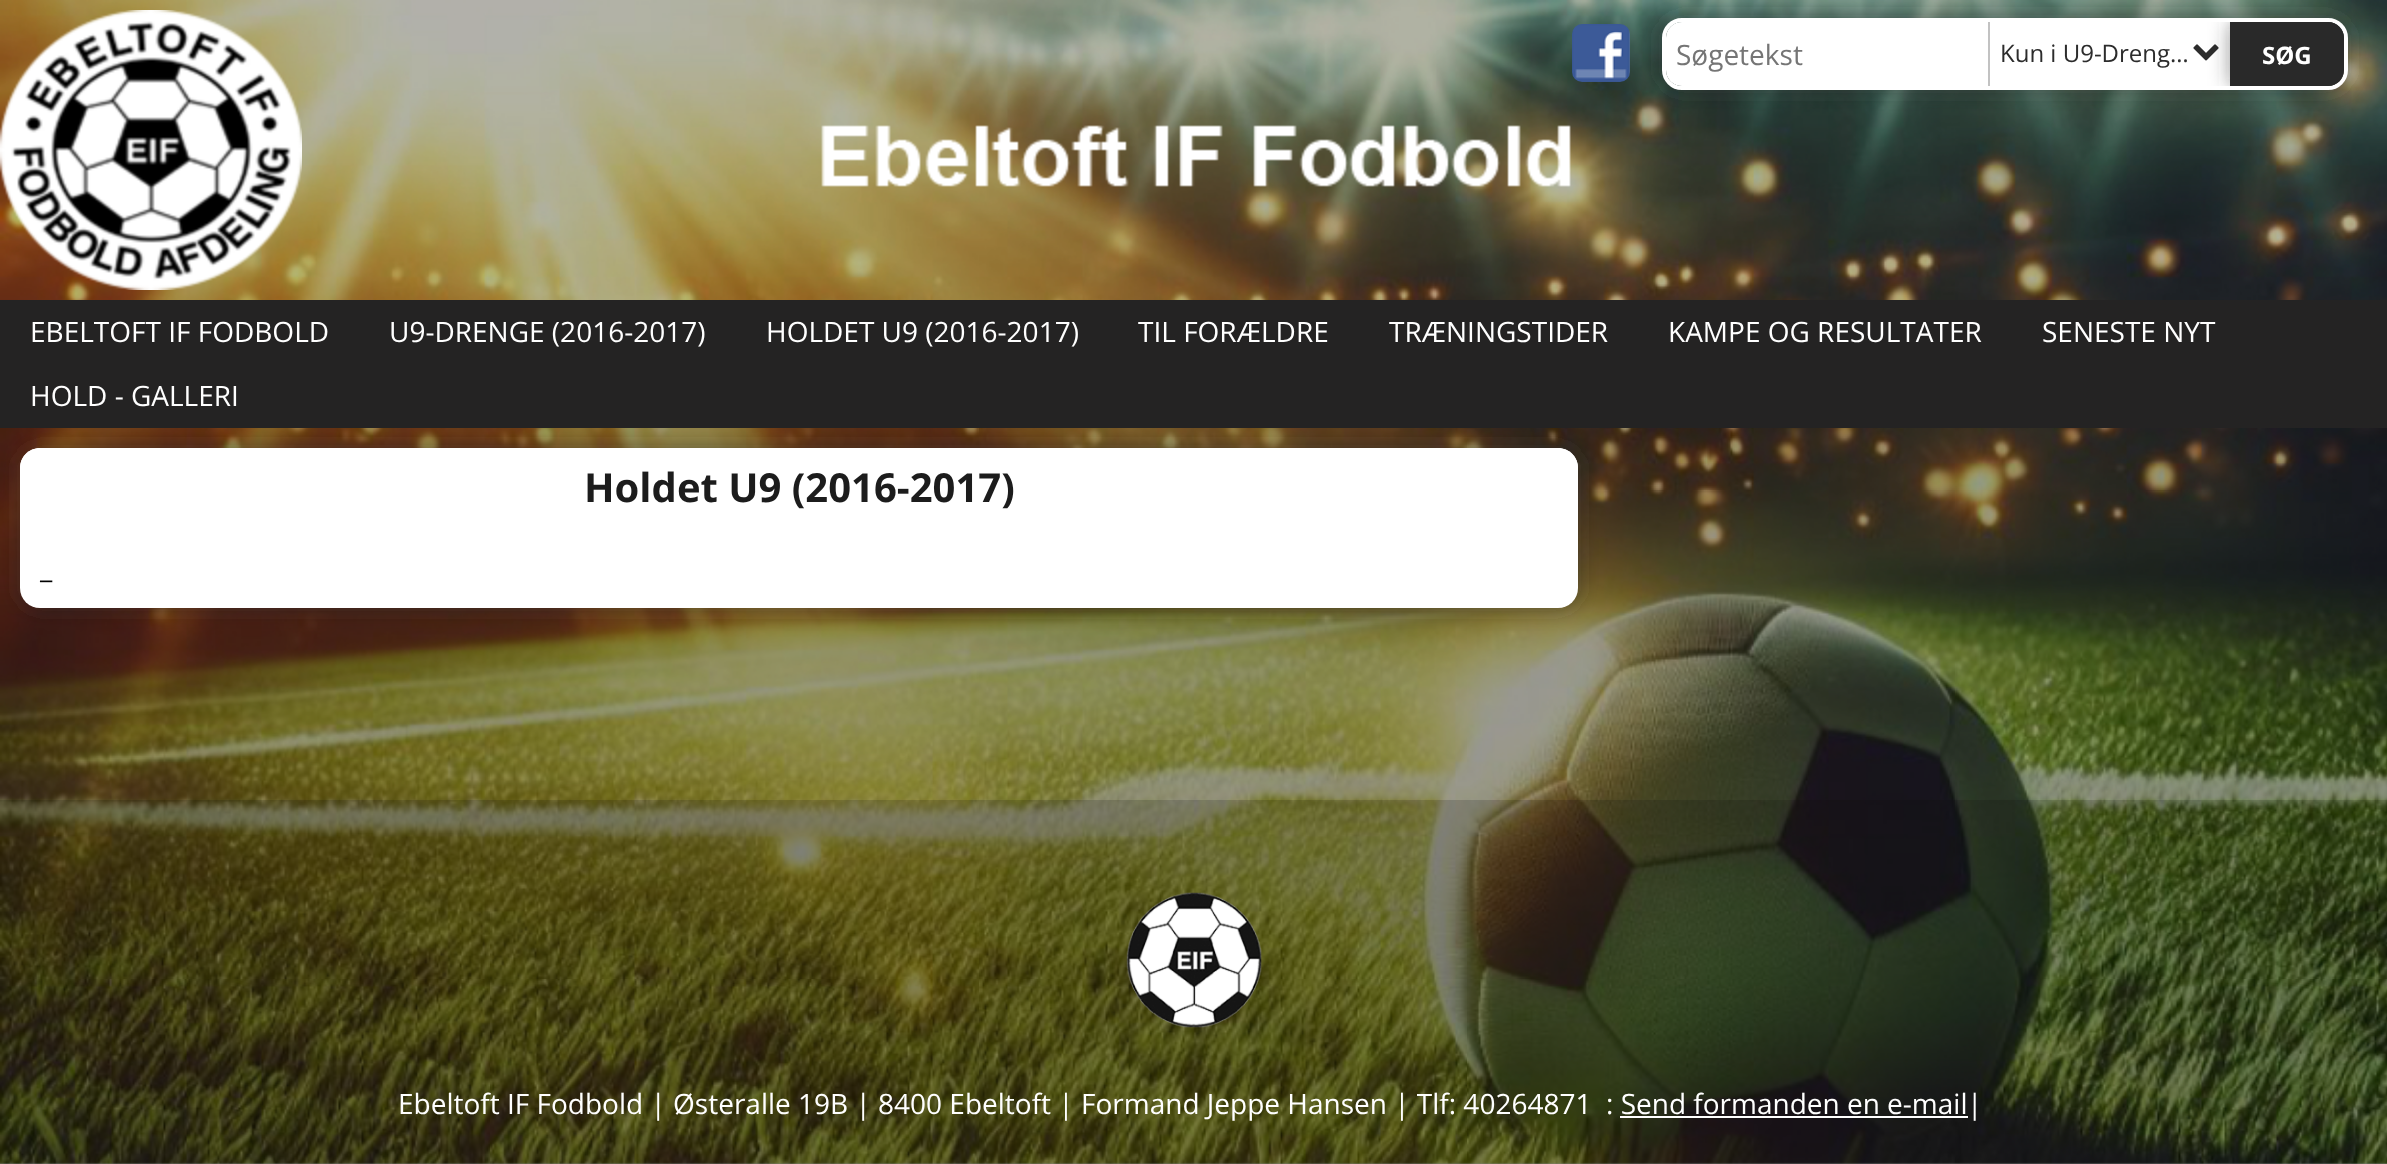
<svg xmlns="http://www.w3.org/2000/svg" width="2387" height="1164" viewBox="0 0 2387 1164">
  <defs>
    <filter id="blur1" x="-50%" y="-200%" width="200%" height="500%"><feGaussianBlur stdDeviation="10"/></filter>
    <clipPath id="clip1"><rect x="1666" y="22" width="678" height="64" rx="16"/></clipPath>
  </defs>
  <rect width="100%" height="100%" fill="#ffffff"/>
  <image x="0" y="0" width="2387" height="1164" href="img1.png"/>
  <rect x="0" y="0" width="2387" height="300" fill="#050505" fill-opacity="0.3"/>
  <image x="821" y="125" width="750" height="62" href="img2.png"/>
  <image x="0" y="10" width="302" height="280" href="img3.png"/>
  <image x="1572" y="24" width="58" height="58" href="img4.png"/>
  <rect x="1662" y="18" width="686" height="72" rx="20" fill="#303030" fill-opacity="0.5" filter="url(#blur1)"/>
  <rect x="1664" y="20" width="682" height="68" rx="18" fill="none" stroke="#ffffff" stroke-width="4"/>
  <path d="M1682 22H1996V86H1682C1673 86 1666 79 1666 70V38C1666 29 1673 22 1682 22Z" fill="#ffffff"/>
  <text x="1676" y="65" font-family="Open Sans" font-size="28" fill="#757575">Søgetekst</text>
  <rect x="1996" y="22" width="234" height="64" fill="#ffffff"/>
  <rect x="1988" y="22" width="2" height="64" fill="#c2c2c2"/>
  <text x="2000" y="62" font-family="Open Sans" font-size="24" fill="#2c2c2c">Kun i U9-Dreng…</text>
  <image x="2193" y="44" width="26" height="17" href="img5.png"/>
  <g clip-path="url(#clip1)">
    <rect x="2230" y="22" width="114" height="64" fill="#303030" fill-opacity="0.5" filter="url(#blur1)"/>
  </g>
  <path d="M2230 22H2328C2337 22 2344 29 2344 38V70C2344 79 2337 86 2328 86H2230Z" fill="#292929"/>
  <text x="2262" y="64" font-family="Open Sans" font-size="24" font-weight="bold" fill="#ffffff">SØG</text>
  <rect x="0" y="300" width="2387" height="128" fill="#242323"/>
  <text x="30" y="342" font-family="Open Sans" font-size="28" fill="#ffffff">EBELTOFT IF FODBOLD</text>
  <text x="389" y="342" font-family="Open Sans" font-size="28" fill="#ffffff">U9-DRENGE (2016-2017)</text>
  <text x="766" y="342" font-family="Open Sans" font-size="28" fill="#ffffff">HOLDET U9 (2016-2017)</text>
  <text x="1138" y="342" font-family="Open Sans" font-size="28" fill="#ffffff">TIL FORÆLDRE</text>
  <text x="1389" y="342" font-family="Open Sans" font-size="28" fill="#ffffff">TRÆNINGSTIDER</text>
  <text x="1668" y="342" font-family="Open Sans" font-size="28" fill="#ffffff">KAMPE OG RESULTATER</text>
  <text x="2042" y="342" font-family="Open Sans" font-size="28" fill="#ffffff">SENESTE NYT</text>
  <text x="30" y="406" font-family="Open Sans" font-size="28" fill="#ffffff">HOLD - GALLERI</text>
  <rect x="0" y="428" width="2387" height="372" fill="#050505" fill-opacity="0.4"/>
  <rect x="20" y="448" width="1558" height="160" rx="20" fill="#303030" fill-opacity="0.5" filter="url(#blur1)"/>
  <rect x="20" y="448" width="1558" height="160" rx="20" fill="#ffffff"/>
  <path d="M40 448H1558C1569 448 1578 457 1578 468V528H20V468C20 457 29 448 40 448Z" fill="#ffffff"/>
  <text x="584" y="502" font-family="Open Sans" font-size="40" font-weight="bold" fill="#1c1c1c">Holdet U9 (2016-2017)</text>
  <text x="40" y="578" font-family="Open Sans" font-size="28" fill="#000000">_</text>
  <rect x="0" y="800" width="2387" height="364" fill="#050505" fill-opacity="0.5"/>
  <image x="1126" y="892" width="136" height="136" href="img6.png"/>
  <text x="398" y="1114" font-family="Open Sans" font-size="28" fill="#ffffff">Ebeltoft IF Fodbold | Østeralle 19B | 8400 Ebeltoft | Formand Jeppe Hansen | Tlf: 40264871</text>
  <text x="1606" y="1114" font-family="Open Sans" font-size="28" fill="#ffffff">: Send formanden en e-mail</text>
  <rect x="1620" y="1116" width="348" height="2" fill="#ffffff"/>
  <text x="1967" y="1114" font-family="Open Sans" font-size="28" fill="#ffffff">|</text>
</svg>
